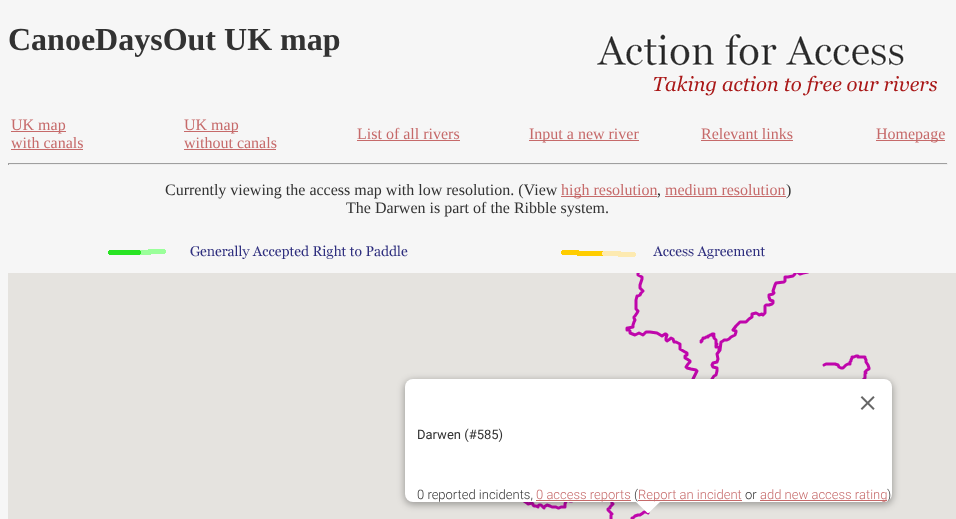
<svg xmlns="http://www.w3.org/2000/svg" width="956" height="519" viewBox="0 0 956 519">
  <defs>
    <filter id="blur1" x="-50%" y="-200%" width="200%" height="500%"><feGaussianBlur stdDeviation="3.5"/></filter>
    <clipPath id="clip1"><rect x="405" y="379" width="487" height="123" rx="8"/></clipPath>
  </defs>
  <rect width="100%" height="100%" fill="#f6f6f6"/>
  <text x="8" y="50" font-family="Liberation Serif" font-size="32" font-weight="bold" fill="#323232">CanoeDaysOut UK map</text>
  <image x="597" y="33" width="340" height="63" href="img1.png"/>
  <rect x="11" y="131" width="55" height="1" fill="#c66a6a"/>
  <text x="11" y="130" font-family="Liberation Serif" font-size="16" fill="#c66a6a">UK map</text>
  <text x="11" y="148" font-family="Liberation Serif" font-size="16" fill="#c66a6a">with canals</text>
  <rect x="11" y="149" width="72" height="1" fill="#c66a6a"/>
  <rect x="184" y="131" width="54" height="1" fill="#c66a6a"/>
  <text x="184" y="130" font-family="Liberation Serif" font-size="16" fill="#c66a6a">UK map</text>
  <text x="184" y="148" font-family="Liberation Serif" font-size="16" fill="#c66a6a">without canals</text>
  <rect x="184" y="149" width="92" height="1" fill="#c66a6a"/>
  <text x="357" y="139" font-family="Liberation Serif" font-size="16" fill="#c66a6a">List of all rivers</text>
  <rect x="357" y="140" width="103" height="1" fill="#c66a6a"/>
  <rect x="529" y="140" width="110" height="1" fill="#c66a6a"/>
  <text x="529" y="139" font-family="Liberation Serif" font-size="16" fill="#c66a6a">Input a new river</text>
  <text x="701" y="139" font-family="Liberation Serif" font-size="16" fill="#c66a6a">Relevant links</text>
  <rect x="701" y="140" width="92" height="1" fill="#c66a6a"/>
  <rect x="876" y="140" width="69" height="1" fill="#c66a6a"/>
  <text x="876" y="139" font-family="Liberation Serif" font-size="16" fill="#c66a6a">Homepage</text>
  <rect x="8" y="163" width="940" height="1" fill="#9f9f9f"/>
  <rect x="947" y="163" width="1" height="2" fill="#eeeeee"/>
  <rect x="8" y="164" width="940" height="1" fill="#eeeeee"/>
  <rect x="8" y="163" width="1" height="2" fill="#9f9f9f"/>
  <text x="165" y="195" font-family="Liberation Serif" font-size="16" fill="#323232">Currently viewing the access map with low resolution. (View</text>
  <rect x="561" y="196" width="96" height="1" fill="#c66a6a"/>
  <text x="561" y="195" font-family="Liberation Serif" font-size="16" fill="#c66a6a">high resolution</text>
  <text x="657" y="195" font-family="Liberation Serif" font-size="16" fill="#323232">,</text>
  <text x="665" y="195" font-family="Liberation Serif" font-size="16" fill="#c66a6a">medium resolution</text>
  <rect x="665" y="196" width="121" height="1" fill="#c66a6a"/>
  <text x="786" y="195" font-family="Liberation Serif" font-size="16" fill="#323232">)</text>
  <text x="346" y="213" font-family="Liberation Serif" font-size="16" fill="#323232">The Darwen is part of the Ribble system.</text>
  <image x="108" y="245" width="657" height="14" href="img2.png"/>
  <rect x="8" y="273" width="948" height="246" fill="#e5e3df"/>
  <image x="625" y="273" width="61" height="96" href="img3.png"/>
  <image x="686" y="273" width="185" height="106" href="img4.png"/>
  <image x="523" y="502" width="127" height="17" href="img5.png"/>
  <rect x="404" y="380" width="489" height="125" rx="9" fill="#000000" fill-opacity="0.3" filter="url(#blur1)"/>
  <rect x="405" y="379" width="487" height="123" rx="8" fill="#ffffff"/>
  <image x="860" y="396" width="15" height="14" href="img6.png"/>
  <text x="417" y="439" font-family="Roboto" font-size="13" fill="#323232">Darwen (#585)</text>
  <text x="417" y="499" font-family="Roboto" font-size="13" font-weight="300" fill="#323232">0 reported incidents,</text>
  <rect x="536" y="500" width="95" height="1" fill="#c66a6a"/>
  <text x="536" y="499" font-family="Roboto" font-size="13" font-weight="300" fill="#c66a6a">0 access reports</text>
  <text x="634" y="499" font-family="Roboto" font-size="13" font-weight="300" fill="#323232">(</text>
  <rect x="638" y="500" width="104" height="1" fill="#c66a6a"/>
  <text x="638" y="499" font-family="Roboto" font-size="13" font-weight="300" fill="#c66a6a">Report an incident</text>
  <text x="745" y="499" font-family="Roboto" font-size="13" font-weight="300" fill="#323232">or</text>
  <rect x="760" y="500" width="127" height="1" fill="#c66a6a"/>
  <text x="760" y="499" font-family="Roboto" font-size="13" font-weight="300" fill="#c66a6a">add new access rating</text>
  <g clip-path="url(#clip1)">
    <text x="887" y="499" font-family="Roboto" font-size="13" font-weight="300" fill="#323232">)</text>
  </g>
  <path d="M636 502V501.5H660.5L648.5 513H647.5Z" fill="#ffffff"/>
</svg>
